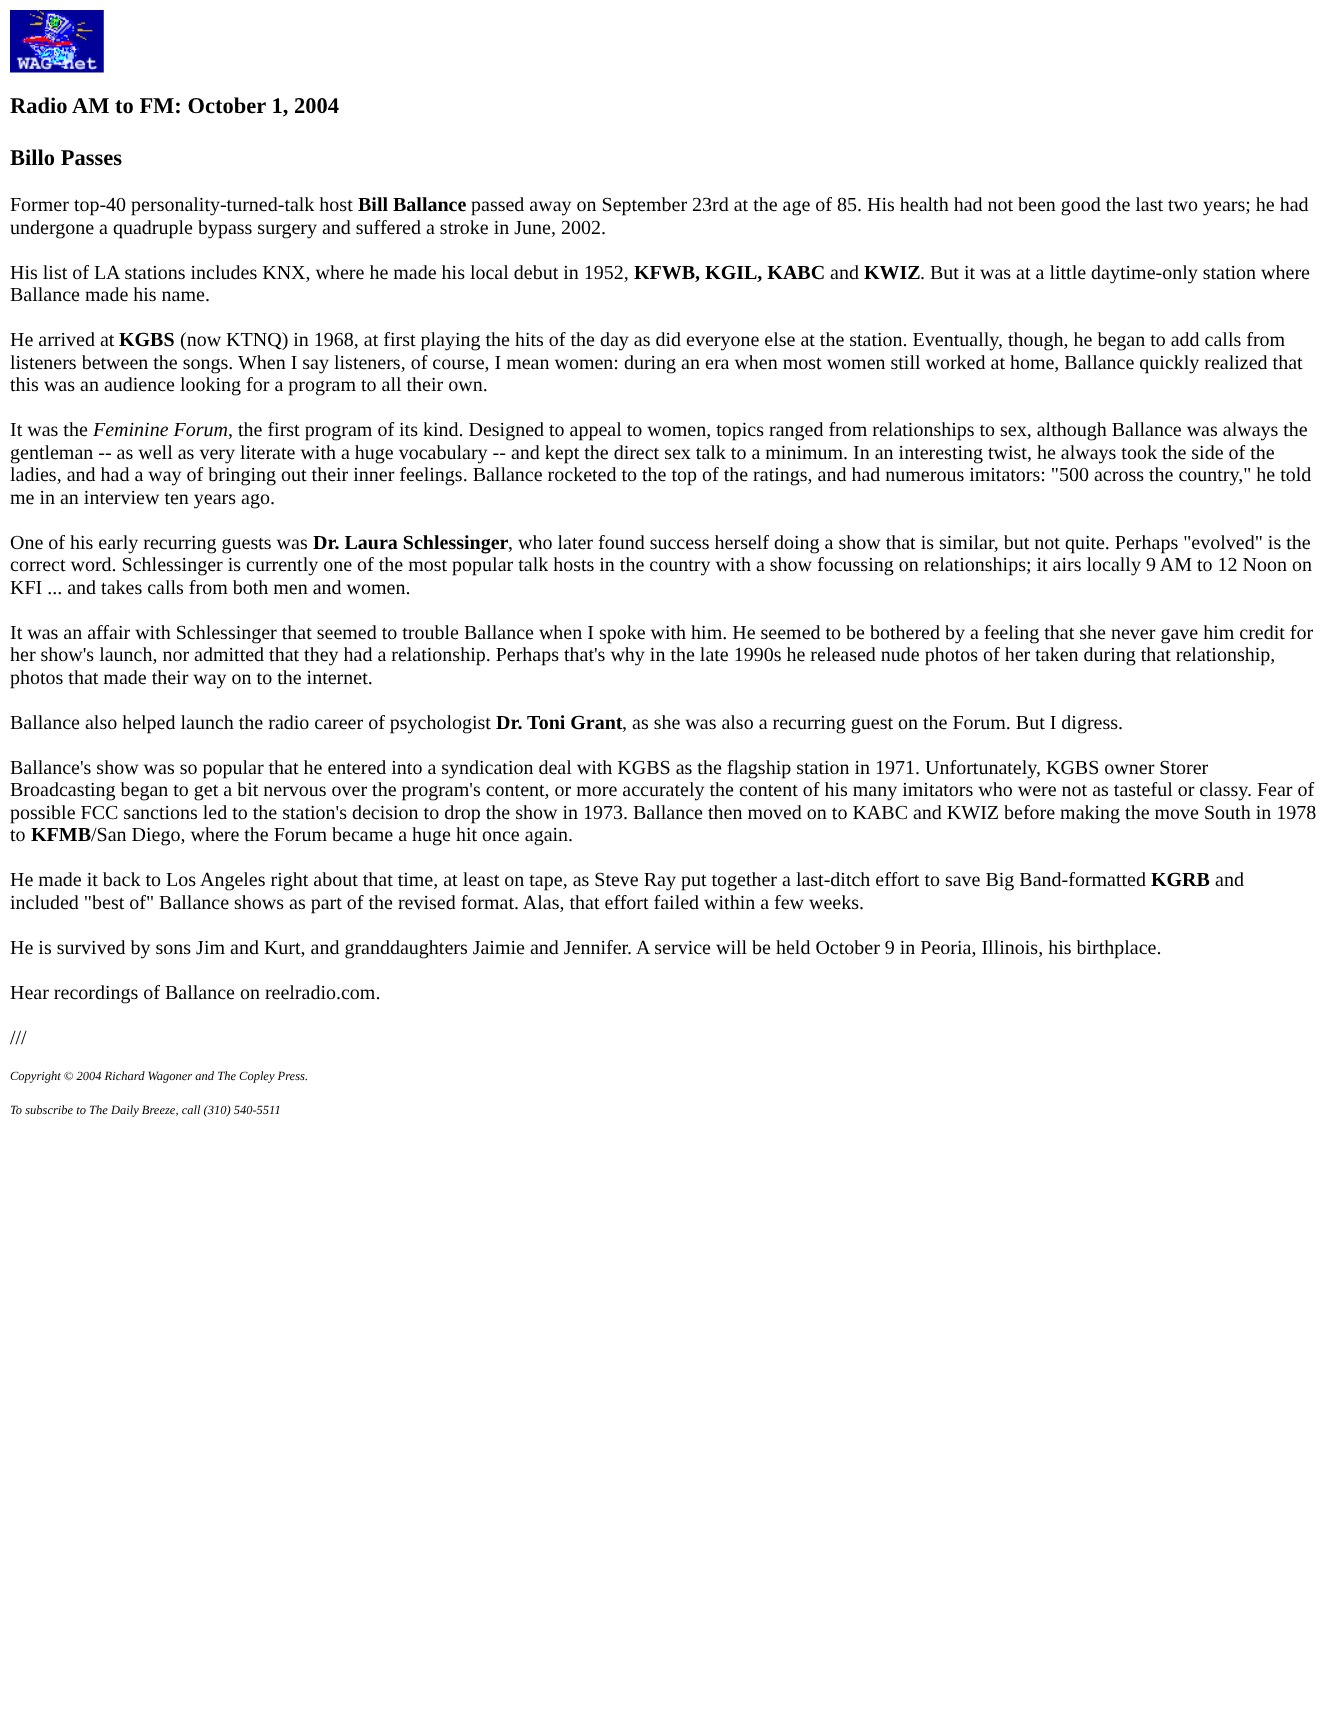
<svg xmlns="http://www.w3.org/2000/svg" width="1327" height="1709" viewBox="0 0 1327 1709">
  <rect width="100%" height="100%" fill="#ffffff"/>
  <image x="10" y="10" width="94" height="63" href="img1.png"/>
  <text x="10" y="113" font-family="Liberation Serif" font-size="22.5" font-weight="bold" fill="#000000">Radio AM to FM: October 1, 2004</text>
  <text x="10" y="165" font-family="Liberation Serif" font-size="22.5" font-weight="bold" fill="#000000">Billo Passes</text>
  <text x="10" y="211" font-family="Liberation Serif" font-size="20" fill="#000000">Former top-40 personality-turned-talk host</text>
  <text x="358" y="211" font-family="Liberation Serif" font-size="20" font-weight="bold" fill="#000000">Bill Ballance</text>
  <text x="471" y="211" font-family="Liberation Serif" font-size="20" fill="#000000">passed away on September 23rd at the age of 85. His health had not been good the last two years; he had</text>
  <text x="10" y="234" font-family="Liberation Serif" font-size="20" fill="#000000">undergone a quadruple bypass surgery and suffered a stroke in June, 2002.</text>
  <text x="10" y="279" font-family="Liberation Serif" font-size="20" fill="#000000">His list of LA stations includes KNX, where he made his local debut in 1952,</text>
  <text x="634" y="279" font-family="Liberation Serif" font-size="20" font-weight="bold" fill="#000000">KFWB, KGIL, KABC</text>
  <text x="830" y="279" font-family="Liberation Serif" font-size="20" fill="#000000">and</text>
  <text x="864" y="279" font-family="Liberation Serif" font-size="20" font-weight="bold" fill="#000000">KWIZ</text>
  <text x="920" y="279" font-family="Liberation Serif" font-size="20" fill="#000000">. But it was at a little daytime-only station where</text>
  <text x="10" y="301" font-family="Liberation Serif" font-size="20" fill="#000000">Ballance made his name.</text>
  <text x="10" y="346" font-family="Liberation Serif" font-size="20" fill="#000000">He arrived at</text>
  <text x="119" y="346" font-family="Liberation Serif" font-size="20" font-weight="bold" fill="#000000">KGBS</text>
  <text x="180" y="346" font-family="Liberation Serif" font-size="20" fill="#000000">(now KTNQ) in 1968, at first playing the hits of the day as did everyone else at the station. Eventually, though, he began to add calls from</text>
  <text x="10" y="369" font-family="Liberation Serif" font-size="20" fill="#000000">listeners between the songs. When I say listeners, of course, I mean women: during an era when most women still worked at home, Ballance quickly realized that</text>
  <text x="10" y="391" font-family="Liberation Serif" font-size="20" fill="#000000">this was an audience looking for a program to all their own.</text>
  <text x="10" y="436" font-family="Liberation Serif" font-size="20" fill="#000000">It was the</text>
  <text x="93" y="436" font-family="Liberation Serif" font-size="20" font-style="italic" fill="#000000">Feminine Forum</text>
  <text x="228" y="436" font-family="Liberation Serif" font-size="20" fill="#000000">, the first program of its kind. Designed to appeal to women, topics ranged from relationships to sex, although Ballance was always the</text>
  <text x="10" y="459" font-family="Liberation Serif" font-size="20" fill="#000000">gentleman -- as well as very literate with a huge vocabulary -- and kept the direct sex talk to a minimum. In an interesting twist, he always took the side of the</text>
  <text x="10" y="481" font-family="Liberation Serif" font-size="20" fill="#000000">ladies, and had a way of bringing out their inner feelings. Ballance rocketed to the top of the ratings, and had numerous imitators: "500 across the country," he told</text>
  <text x="10" y="504" font-family="Liberation Serif" font-size="20" fill="#000000">me in an interview ten years ago.</text>
  <text x="10" y="549" font-family="Liberation Serif" font-size="20" fill="#000000">One of his early recurring guests was</text>
  <text x="313" y="549" font-family="Liberation Serif" font-size="20" font-weight="bold" fill="#000000">Dr. Laura Schlessinger</text>
  <text x="508" y="549" font-family="Liberation Serif" font-size="20" fill="#000000">, who later found success herself doing a show that is similar, but not quite. Perhaps "evolved" is the</text>
  <text x="10" y="571" font-family="Liberation Serif" font-size="20" fill="#000000">correct word. Schlessinger is currently one of the most popular talk hosts in the country with a show focussing on relationships; it airs locally 9 AM to 12 Noon on</text>
  <text x="10" y="594" font-family="Liberation Serif" font-size="20" fill="#000000">KFI ... and takes calls from both men and women.</text>
  <text x="10" y="639" font-family="Liberation Serif" font-size="20" fill="#000000">It was an affair with Schlessinger that seemed to trouble Ballance when I spoke with him. He seemed to be bothered by a feeling that she never gave him credit for</text>
  <text x="10" y="661" font-family="Liberation Serif" font-size="20" fill="#000000">her show's launch, nor admitted that they had a relationship. Perhaps that's why in the late 1990s he released nude photos of her taken during that relationship,</text>
  <text x="10" y="684" font-family="Liberation Serif" font-size="20" fill="#000000">photos that made their way on to the internet.</text>
  <text x="10" y="729" font-family="Liberation Serif" font-size="20" fill="#000000">Ballance also helped launch the radio career of psychologist</text>
  <text x="496" y="729" font-family="Liberation Serif" font-size="20" font-weight="bold" fill="#000000">Dr. Toni Grant</text>
  <text x="622" y="729" font-family="Liberation Serif" font-size="20" fill="#000000">, as she was also a recurring guest on the Forum. But I digress.</text>
  <text x="10" y="774" font-family="Liberation Serif" font-size="20" fill="#000000">Ballance's show was so popular that he entered into a syndication deal with KGBS as the flagship station in 1971. Unfortunately, KGBS owner Storer</text>
  <text x="10" y="796" font-family="Liberation Serif" font-size="20" fill="#000000">Broadcasting began to get a bit nervous over the program's content, or more accurately the content of his many imitators who were not as tasteful or classy. Fear of</text>
  <text x="10" y="819" font-family="Liberation Serif" font-size="20" fill="#000000">possible FCC sanctions led to the station's decision to drop the show in 1973. Ballance then moved on to KABC and KWIZ before making the move South in 1978</text>
  <text x="10" y="841" font-family="Liberation Serif" font-size="20" fill="#000000">to</text>
  <text x="31" y="841" font-family="Liberation Serif" font-size="20" font-weight="bold" fill="#000000">KFMB</text>
  <text x="91" y="841" font-family="Liberation Serif" font-size="20" fill="#000000">/San Diego, where the Forum became a huge hit once again.</text>
  <text x="10" y="886" font-family="Liberation Serif" font-size="20" fill="#000000">He made it back to Los Angeles right about that time, at least on tape, as Steve Ray put together a last-ditch effort to save Big Band-formatted</text>
  <text x="1151" y="886" font-family="Liberation Serif" font-size="20" font-weight="bold" fill="#000000">KGRB</text>
  <text x="1215" y="886" font-family="Liberation Serif" font-size="20" fill="#000000">and</text>
  <text x="10" y="909" font-family="Liberation Serif" font-size="20" fill="#000000">included "best of" Ballance shows as part of the revised format. Alas, that effort failed within a few weeks.</text>
  <text x="10" y="954" font-family="Liberation Serif" font-size="20" fill="#000000">He is survived by sons Jim and Kurt, and granddaughters Jaimie and Jennifer. A service will be held October 9 in Peoria, Illinois, his birthplace.</text>
  <text x="10" y="999" font-family="Liberation Serif" font-size="20" fill="#000000">Hear recordings of Ballance on reelradio.com.</text>
  <text x="10" y="1044" font-family="Liberation Serif" font-size="20" fill="#000000">///</text>
  <text x="10" y="1080" font-family="Liberation Serif" font-size="12.5" font-style="italic" fill="#000000">Copyright © 2004 Richard Wagoner and The Copley Press.</text>
  <text x="10" y="1114" font-family="Liberation Serif" font-size="12.5" font-style="italic" fill="#000000">To subscribe to The Daily Breeze, call (310) 540-5511</text>
</svg>
